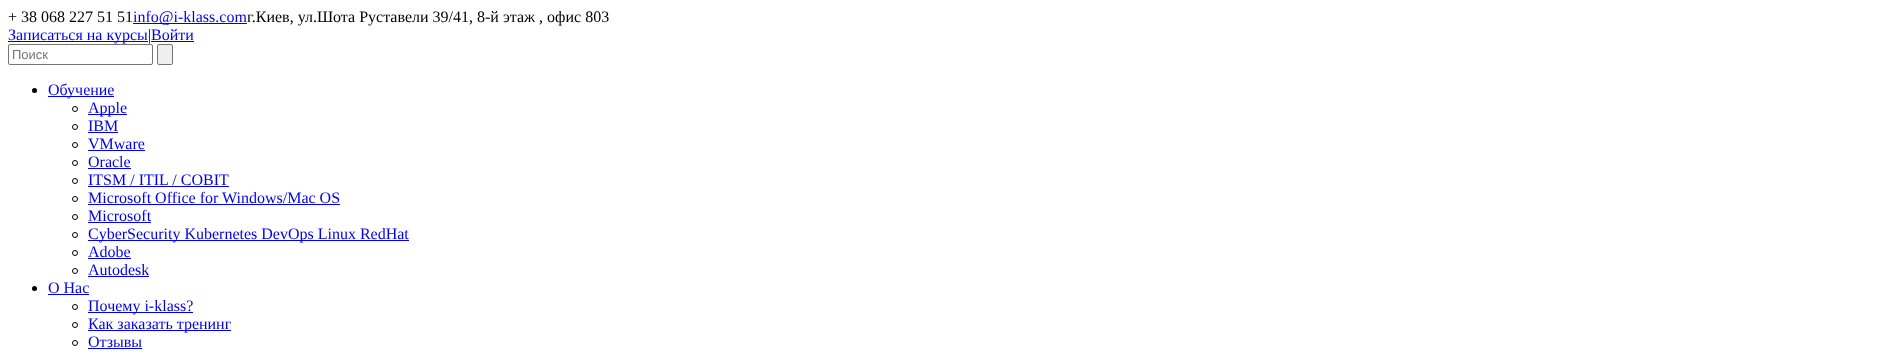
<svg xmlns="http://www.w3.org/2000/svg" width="1877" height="354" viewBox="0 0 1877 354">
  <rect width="100%" height="100%" fill="#ffffff"/>
  <text x="8" y="22" font-family="Liberation Serif" font-size="16" fill="#000000">+ 38 068 227 51 51</text>
  <rect x="133" y="23" width="114" height="1" fill="#0000ee"/>
  <text x="133" y="22" font-family="Liberation Serif" font-size="16" fill="#0000ee">info@i-klass.com</text>
  <text x="247" y="22" font-family="Liberation Serif" font-size="16" fill="#000000">г.Киев, ул.Шота Руставели 39/41, 8-й этаж , офис 803</text>
  <rect x="8" y="41" width="140" height="1" fill="#0000ee"/>
  <text x="8" y="40" font-family="Liberation Serif" font-size="16" fill="#0000ee">Записаться на курсы</text>
  <text x="148" y="40" font-family="Liberation Serif" font-size="16" fill="#000000">|</text>
  <text x="151" y="40" font-family="Liberation Serif" font-size="16" fill="#0000ee">Войти</text>
  <rect x="151" y="41" width="43" height="1" fill="#0000ee"/>
  <rect x="8.5" y="44.5" width="144" height="20" rx="1.5" fill="none" stroke="#767676"/>
  <text x="12" y="59" font-family="Liberation Sans" font-size="13" fill="#757575">Поиск</text>
  <rect x="157.5" y="44.5" width="15" height="20" rx="1.5" fill="#efefef" stroke="#767676"/>
  <circle cx="34.5" cy="90.5" r="2.5" fill="#000000"/>
  <rect x="48" y="96" width="66" height="1" fill="#0000ee"/>
  <text x="48" y="95" font-family="Liberation Serif" font-size="16" fill="#0000ee">Обучение</text>
  <circle cx="75" cy="109" r="2.5" fill="none" stroke="#000000"/>
  <rect x="88" y="114" width="39" height="1" fill="#0000ee"/>
  <text x="88" y="113" font-family="Liberation Serif" font-size="16" fill="#0000ee">Apple</text>
  <circle cx="75" cy="127" r="2.5" fill="none" stroke="#000000"/>
  <text x="88" y="131" font-family="Liberation Serif" font-size="16" fill="#0000ee">IBM</text>
  <rect x="88" y="132" width="30" height="1" fill="#0000ee"/>
  <circle cx="75" cy="145" r="2.5" fill="none" stroke="#000000"/>
  <text x="88" y="149" font-family="Liberation Serif" font-size="16" fill="#0000ee">VMware</text>
  <rect x="88" y="150" width="57" height="1" fill="#0000ee"/>
  <circle cx="75" cy="163" r="2.5" fill="none" stroke="#000000"/>
  <text x="88" y="167" font-family="Liberation Serif" font-size="16" fill="#0000ee">Oracle</text>
  <rect x="88" y="168" width="43" height="1" fill="#0000ee"/>
  <circle cx="75" cy="181" r="2.5" fill="none" stroke="#000000"/>
  <text x="88" y="185" font-family="Liberation Serif" font-size="16" fill="#0000ee">ITSM / ITIL / COBIT</text>
  <rect x="88" y="186" width="141" height="1" fill="#0000ee"/>
  <circle cx="75" cy="199" r="2.5" fill="none" stroke="#000000"/>
  <text x="88" y="203" font-family="Liberation Serif" font-size="16" fill="#0000ee">Microsoft Office for Windows/Mac OS</text>
  <rect x="88" y="204" width="252" height="1" fill="#0000ee"/>
  <circle cx="75" cy="217" r="2.5" fill="none" stroke="#000000"/>
  <text x="88" y="221" font-family="Liberation Serif" font-size="16" fill="#0000ee">Microsoft</text>
  <rect x="88" y="222" width="63" height="1" fill="#0000ee"/>
  <circle cx="75" cy="235" r="2.5" fill="none" stroke="#000000"/>
  <rect x="88" y="240" width="321" height="1" fill="#0000ee"/>
  <text x="88" y="239" font-family="Liberation Serif" font-size="16" fill="#0000ee">CyberSecurity Kubernetes DevOps Linux RedHat</text>
  <circle cx="75" cy="253" r="2.5" fill="none" stroke="#000000"/>
  <text x="88" y="257" font-family="Liberation Serif" font-size="16" fill="#0000ee">Adobe</text>
  <rect x="88" y="258" width="43" height="1" fill="#0000ee"/>
  <circle cx="75" cy="271" r="2.5" fill="none" stroke="#000000"/>
  <text x="88" y="275" font-family="Liberation Serif" font-size="16" fill="#0000ee">Autodesk</text>
  <rect x="88" y="276" width="61" height="1" fill="#0000ee"/>
  <circle cx="34.5" cy="288.5" r="2.5" fill="#000000"/>
  <text x="48" y="293" font-family="Liberation Serif" font-size="16" fill="#0000ee">О Нас</text>
  <rect x="48" y="294" width="41" height="1" fill="#0000ee"/>
  <circle cx="75" cy="307" r="2.5" fill="none" stroke="#000000"/>
  <rect x="88" y="312" width="105" height="1" fill="#0000ee"/>
  <text x="88" y="311" font-family="Liberation Serif" font-size="16" fill="#0000ee">Почему i-klass?</text>
  <circle cx="75" cy="325" r="2.5" fill="none" stroke="#000000"/>
  <rect x="88" y="330" width="143" height="1" fill="#0000ee"/>
  <text x="88" y="329" font-family="Liberation Serif" font-size="16" fill="#0000ee">Как заказать тренинг</text>
  <circle cx="75" cy="343" r="2.5" fill="none" stroke="#000000"/>
  <text x="88" y="347" font-family="Liberation Serif" font-size="16" fill="#0000ee">Отзывы</text>
  <rect x="88" y="348" width="54" height="1" fill="#0000ee"/>
</svg>
